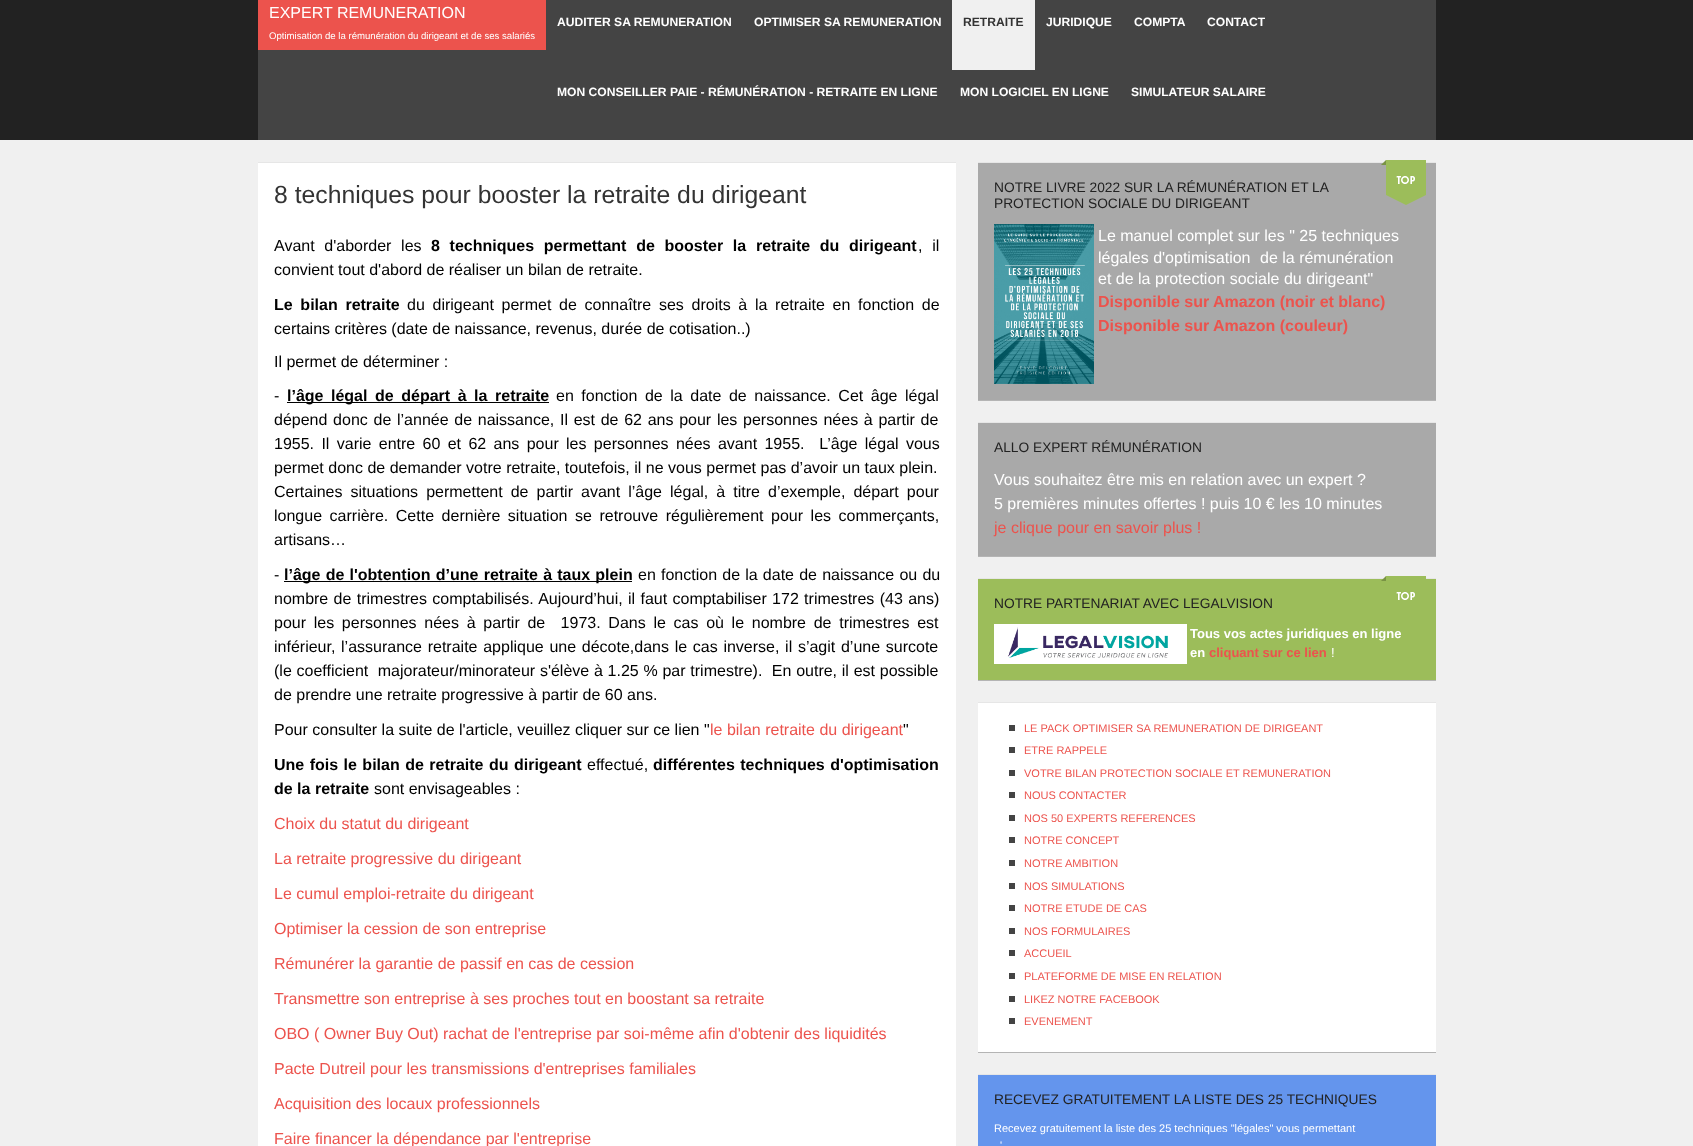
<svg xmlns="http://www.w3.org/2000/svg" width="1693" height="1146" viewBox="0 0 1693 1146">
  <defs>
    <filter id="blur1" x="-50%" y="-200%" width="200%" height="500%"><feGaussianBlur stdDeviation="0.5"/></filter>
  </defs>
  <rect width="100%" height="100%" fill="#f0f0f0"/>
  <rect x="0" y="0" width="1693" height="140" fill="#222222"/>
  <rect x="258" y="0" width="1178" height="140" fill="#444444"/>
  <rect x="258" y="0" width="288" height="50" fill="#ec534d"/>
  <text x="269" y="18" font-family="Liberation Sans" font-size="16" fill="#ffffff">EXPERT REMUNERATION</text>
  <text x="269" y="39" font-family="Liberation Sans" font-size="9.6" fill="#ffffff">Optimisation de la rémunération du dirigeant et de ses salariés</text>
  <text x="557" y="26" font-family="Liberation Sans" font-size="12.1" font-weight="bold" fill="#ffffff">AUDITER SA REMUNERATION</text>
  <text x="754" y="26" font-family="Liberation Sans" font-size="12.1" font-weight="bold" fill="#ffffff">OPTIMISER SA REMUNERATION</text>
  <rect x="952" y="0" width="83" height="70" fill="#f0f0f0"/>
  <text x="963" y="26" font-family="Liberation Sans" font-size="12.1" font-weight="bold" fill="#333333">RETRAITE</text>
  <text x="1046" y="26" font-family="Liberation Sans" font-size="12.1" font-weight="bold" fill="#ffffff">JURIDIQUE</text>
  <text x="1134" y="26" font-family="Liberation Sans" font-size="12.1" font-weight="bold" fill="#ffffff">COMPTA</text>
  <text x="1207" y="26" font-family="Liberation Sans" font-size="12.1" font-weight="bold" fill="#ffffff">CONTACT</text>
  <text x="557" y="96" font-family="Liberation Sans" font-size="12.1" font-weight="bold" fill="#ffffff">MON CONSEILLER PAIE - RÉMUNÉRATION - RETRAITE EN LIGNE</text>
  <text x="960" y="96" font-family="Liberation Sans" font-size="12.1" font-weight="bold" fill="#ffffff">MON LOGICIEL EN LIGNE</text>
  <text x="1131" y="96" font-family="Liberation Sans" font-size="12.1" font-weight="bold" fill="#ffffff">SIMULATEUR SALAIRE</text>
  <rect x="258" y="163" width="698" height="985" fill="#000000" fill-opacity="0.25" filter="url(#blur1)"/>
  <rect x="258" y="163" width="698" height="983" fill="#ffffff"/>
  <rect x="258" y="162" width="698" height="1" fill="#e6e6e6"/>
  <text x="274" y="203" font-family="Liberation Sans" font-size="24.75" fill="#333333">8 techniques pour booster la retraite du dirigeant</text>
  <text x="274" y="251" word-spacing="5.25" font-family="Liberation Sans" font-size="16" fill="#000000">Avant d'aborder les</text>
  <text x="431" y="251" word-spacing="5.25" font-family="Liberation Sans" font-size="16" font-weight="bold" fill="#000000">8 techniques permettant de booster la retraite du dirigeant</text>
  <text x="918" y="251" word-spacing="5.25" font-family="Liberation Sans" font-size="16" fill="#000000">, il</text>
  <text x="274" y="275" font-family="Liberation Sans" font-size="16" fill="#000000">convient tout d'abord de réaliser un bilan de retraite.</text>
  <text x="274" y="310" word-spacing="3.25" font-family="Liberation Sans" font-size="16" font-weight="bold" fill="#000000">Le bilan retraite</text>
  <text x="407" y="310" word-spacing="3.25" font-family="Liberation Sans" font-size="16" fill="#000000">du dirigeant permet de connaître ses droits à la retraite en fonction de</text>
  <text x="274" y="334" font-family="Liberation Sans" font-size="16" fill="#000000">certains critères (date de naissance, revenus, durée de cotisation..)</text>
  <text x="274" y="367" font-family="Liberation Sans" font-size="16" fill="#000000">Il permet de déterminer :</text>
  <text x="274" y="401" font-family="Liberation Sans" font-size="16" fill="#000000">-</text>
  <rect x="287" y="402" width="262" height="1" fill="#000000"/>
  <text x="287" y="401" word-spacing="3.1" font-family="Liberation Sans" font-size="16" font-weight="bold" fill="#000000">l’âge légal de départ à la retraite</text>
  <text x="556" y="401" word-spacing="3.1" font-family="Liberation Sans" font-size="16" fill="#000000">en fonction de la date de naissance. Cet âge légal</text>
  <text x="274" y="425" word-spacing="1.25" font-family="Liberation Sans" font-size="16" fill="#000000">dépend donc de l’année de naissance, Il est de 62 ans pour les personnes nées à partir de</text>
  <text x="274" y="449" word-spacing="2.9" font-family="Liberation Sans" font-size="16" fill="#000000" xml:space="preserve">1955. Il varie entre 60 et 62 ans pour les personnes nées avant 1955.  L’âge légal vous</text>
  <text x="274" y="473" font-family="Liberation Sans" font-size="16" fill="#000000">permet donc de demander votre retraite, toutefois, il ne vous permet pas d’avoir un taux plein.</text>
  <text x="274" y="497" word-spacing="3.6" font-family="Liberation Sans" font-size="16" fill="#000000">Certaines situations permettent de partir avant l’âge légal, à titre d’exemple, départ pour</text>
  <text x="274" y="521" word-spacing="3.1" font-family="Liberation Sans" font-size="16" fill="#000000">longue carrière. Cette dernière situation se retrouve régulièrement pour les commerçants,</text>
  <text x="274" y="545" font-family="Liberation Sans" font-size="16" fill="#000000">artisans…</text>
  <text x="274" y="580" font-family="Liberation Sans" font-size="16" fill="#000000">-</text>
  <rect x="284" y="581" width="348" height="1" fill="#000000"/>
  <text x="284" y="580" word-spacing="0.75" font-family="Liberation Sans" font-size="16" font-weight="bold" fill="#000000">l’âge de l'obtention d’une retraite à taux plein</text>
  <text x="638" y="580" word-spacing="0.75" font-family="Liberation Sans" font-size="16" fill="#000000">en fonction de la date de naissance ou du</text>
  <text x="274" y="604" word-spacing="0.9" font-family="Liberation Sans" font-size="16" fill="#000000">nombre de trimestres comptabilisés. Aujourd’hui, il faut comptabiliser 172 trimestres (43 ans)</text>
  <text x="274" y="628" word-spacing="3.25" font-family="Liberation Sans" font-size="16" fill="#000000" xml:space="preserve">pour les personnes nées à partir de  1973. Dans le cas où le nombre de trimestres est</text>
  <text x="274" y="652" word-spacing="1.25" font-family="Liberation Sans" font-size="16" fill="#000000">inférieur, l’assurance retraite applique une décote,dans le cas inverse, il s’agit d’une surcote</text>
  <text x="274" y="676" word-spacing="0.3" font-family="Liberation Sans" font-size="16" fill="#000000" xml:space="preserve">(le coefficient  majorateur/minorateur s'élève à 1.25 % par trimestre).  En outre, il est possible</text>
  <text x="274" y="700" font-family="Liberation Sans" font-size="16" fill="#000000">de prendre une retraite progressive à partir de 60 ans.</text>
  <text x="274" y="735" font-family="Liberation Sans" font-size="16" fill="#000000">Pour consulter la suite de l'article, veuillez cliquer sur ce lien "</text>
  <text x="710" y="735" font-family="Liberation Sans" font-size="16" fill="#ec534d">le bilan retraite du dirigeant</text>
  <text x="903" y="735" font-family="Liberation Sans" font-size="16" fill="#000000">"</text>
  <text x="274" y="770" word-spacing="1" font-family="Liberation Sans" font-size="16" font-weight="bold" fill="#000000">Une fois le bilan de retraite du dirigeant</text>
  <text x="587" y="770" font-family="Liberation Sans" font-size="16" fill="#000000">effectué,</text>
  <text x="653" y="770" word-spacing="1" font-family="Liberation Sans" font-size="16" font-weight="bold" fill="#000000">différentes techniques d'optimisation</text>
  <text x="274" y="794" font-family="Liberation Sans" font-size="16" font-weight="bold" fill="#000000">de la retraite</text>
  <text x="374" y="794" font-family="Liberation Sans" font-size="16" fill="#000000">sont envisageables :</text>
  <text x="274" y="829" font-family="Liberation Sans" font-size="16" fill="#ec534d">Choix du statut du dirigeant</text>
  <text x="274" y="864" font-family="Liberation Sans" font-size="16" fill="#ec534d">La retraite progressive du dirigeant</text>
  <text x="274" y="899" font-family="Liberation Sans" font-size="16" fill="#ec534d">Le cumul emploi-retraite du dirigeant</text>
  <text x="274" y="934" font-family="Liberation Sans" font-size="16" fill="#ec534d">Optimiser la cession de son entreprise</text>
  <text x="274" y="969" font-family="Liberation Sans" font-size="16" fill="#ec534d">Rémunérer la garantie de passif en cas de cession</text>
  <text x="274" y="1004" font-family="Liberation Sans" font-size="16" fill="#ec534d">Transmettre son entreprise à ses proches tout en boostant sa retraite</text>
  <text x="274" y="1039" font-family="Liberation Sans" font-size="16" fill="#ec534d">OBO ( Owner Buy Out) rachat de l'entreprise par soi-même afin d'obtenir des liquidités</text>
  <text x="274" y="1074" font-family="Liberation Sans" font-size="16" fill="#ec534d">Pacte Dutreil pour les transmissions d'entreprises familiales</text>
  <text x="274" y="1109" font-family="Liberation Sans" font-size="16" fill="#ec534d">Acquisition des locaux professionnels</text>
  <text x="274" y="1144" font-family="Liberation Sans" font-size="16" fill="#ec534d">Faire financer la dépendance par l'entreprise</text>
  <rect x="978" y="163" width="458" height="238" fill="#000000" fill-opacity="0.25" filter="url(#blur1)"/>
  <rect x="978" y="163" width="458" height="237" fill="#a9a9a9"/>
  <rect x="978" y="162" width="458" height="1" fill="#e6e6e6"/>
  <text x="994" y="192" font-family="Liberation Sans" font-size="13.75" fill="#222222">NOTRE LIVRE 2022 SUR LA RÉMUNÉRATION ET LA</text>
  <text x="994" y="208" font-family="Liberation Sans" font-size="13.75" fill="#222222">PROTECTION SOCIALE DU DIRIGEANT</text>
  <image x="1381" y="160" width="45" height="45" href="img1.png"/>
  <image x="994" y="224" width="100" height="160" href="img2.png"/>
  <text x="1098" y="241" font-family="Liberation Sans" font-size="16" fill="#ffffff">Le manuel complet sur les " 25 techniques</text>
  <text x="1098" y="263" font-family="Liberation Sans" font-size="16" fill="#ffffff">légales d'optimisation</text>
  <text x="1260" y="263" font-family="Liberation Sans" font-size="16" fill="#ffffff">de la rémunération</text>
  <text x="1098" y="284" font-family="Liberation Sans" font-size="16" fill="#ffffff">et de la protection sociale du dirigeant"</text>
  <text x="1098" y="307" font-family="Liberation Sans" font-size="16" font-weight="bold" fill="#ec534d">Disponible sur Amazon (noir et blanc)</text>
  <text x="1098" y="331" font-family="Liberation Sans" font-size="16" font-weight="bold" fill="#ec534d">Disponible sur Amazon (couleur)</text>
  <rect x="978" y="423" width="458" height="134" fill="#000000" fill-opacity="0.25" filter="url(#blur1)"/>
  <rect x="978" y="423" width="458" height="133" fill="#a9a9a9"/>
  <rect x="978" y="422" width="458" height="1" fill="#e6e6e6"/>
  <text x="994" y="452" font-family="Liberation Sans" font-size="13.75" fill="#222222">ALLO EXPERT RÉMUNÉRATION</text>
  <text x="994" y="485" font-family="Liberation Sans" font-size="16" fill="#ffffff">Vous souhaitez être mis en relation avec un expert ?</text>
  <text x="994" y="509" font-family="Liberation Sans" font-size="16" fill="#ffffff">5 premières minutes offertes ! puis 10 € les 10 minutes</text>
  <text x="994" y="533" font-family="Liberation Sans" font-size="16" fill="#ec534d">je clique pour en savoir plus !</text>
  <rect x="978" y="579" width="458" height="102" fill="#000000" fill-opacity="0.25" filter="url(#blur1)"/>
  <rect x="978" y="579" width="458" height="101" fill="#9cbd5a"/>
  <rect x="978" y="578" width="458" height="1" fill="#e6e6e6"/>
  <image x="1381" y="576" width="45" height="24" href="img3.png"/>
  <text x="994" y="608" font-family="Liberation Sans" font-size="13.75" fill="#222222">NOTRE PARTENARIAT AVEC LEGALVISION</text>
  <image x="994" y="624" width="193" height="40" href="img4.png"/>
  <text x="1190" y="638" font-family="Liberation Sans" font-size="13" font-weight="bold" fill="#ffffff">Tous vos actes juridiques en ligne</text>
  <text x="1190" y="657" font-family="Liberation Sans" font-size="13" font-weight="bold" fill="#ffffff">en</text>
  <text x="1209" y="657" font-family="Liberation Sans" font-size="13" font-weight="bold" fill="#ec534d">cliquant sur ce lien</text>
  <text x="1331" y="657" font-family="Liberation Sans" font-size="13" fill="#ffffff">!</text>
  <rect x="978" y="703" width="458" height="350" fill="#000000" fill-opacity="0.25" filter="url(#blur1)"/>
  <rect x="978" y="703" width="458" height="349" fill="#ffffff"/>
  <rect x="978" y="702" width="458" height="1" fill="#e6e6e6"/>
  <rect x="1009" y="725" width="6" height="6" fill="#444444"/>
  <text x="1024" y="732" font-family="Liberation Sans" font-size="11" fill="#ec534d">LE PACK OPTIMISER SA REMUNERATION DE DIRIGEANT</text>
  <rect x="1009" y="747" width="6" height="6" fill="#444444"/>
  <text x="1024" y="754" font-family="Liberation Sans" font-size="11" fill="#ec534d">ETRE RAPPELE</text>
  <rect x="1009" y="770" width="6" height="6" fill="#444444"/>
  <text x="1024" y="777" font-family="Liberation Sans" font-size="11" fill="#ec534d">VOTRE BILAN PROTECTION SOCIALE ET REMUNERATION</text>
  <rect x="1009" y="792" width="6" height="6" fill="#444444"/>
  <text x="1024" y="799" font-family="Liberation Sans" font-size="11" fill="#ec534d">NOUS CONTACTER</text>
  <rect x="1009" y="815" width="6" height="6" fill="#444444"/>
  <text x="1024" y="822" font-family="Liberation Sans" font-size="11" fill="#ec534d">NOS 50 EXPERTS REFERENCES</text>
  <rect x="1009" y="837" width="6" height="6" fill="#444444"/>
  <text x="1024" y="844" font-family="Liberation Sans" font-size="11" fill="#ec534d">NOTRE CONCEPT</text>
  <rect x="1009" y="860" width="6" height="6" fill="#444444"/>
  <text x="1024" y="867" font-family="Liberation Sans" font-size="11" fill="#ec534d">NOTRE AMBITION</text>
  <rect x="1009" y="883" width="6" height="6" fill="#444444"/>
  <text x="1024" y="890" font-family="Liberation Sans" font-size="11" fill="#ec534d">NOS SIMULATIONS</text>
  <rect x="1009" y="905" width="6" height="6" fill="#444444"/>
  <text x="1024" y="912" font-family="Liberation Sans" font-size="11" fill="#ec534d">NOTRE ETUDE DE CAS</text>
  <rect x="1009" y="928" width="6" height="6" fill="#444444"/>
  <text x="1024" y="935" font-family="Liberation Sans" font-size="11" fill="#ec534d">NOS FORMULAIRES</text>
  <rect x="1009" y="950" width="6" height="6" fill="#444444"/>
  <text x="1024" y="957" font-family="Liberation Sans" font-size="11" fill="#ec534d">ACCUEIL</text>
  <rect x="1009" y="973" width="6" height="6" fill="#444444"/>
  <text x="1024" y="980" font-family="Liberation Sans" font-size="11" fill="#ec534d">PLATEFORME DE MISE EN RELATION</text>
  <rect x="1009" y="996" width="6" height="6" fill="#444444"/>
  <text x="1024" y="1003" font-family="Liberation Sans" font-size="11" fill="#ec534d">LIKEZ NOTRE FACEBOOK</text>
  <rect x="1009" y="1018" width="6" height="6" fill="#444444"/>
  <text x="1024" y="1025" font-family="Liberation Sans" font-size="11" fill="#ec534d">EVENEMENT</text>
  <rect x="978" y="1075" width="458" height="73" fill="#000000" fill-opacity="0.25" filter="url(#blur1)"/>
  <rect x="978" y="1075" width="458" height="71" fill="#6495ed"/>
  <rect x="978" y="1074" width="458" height="1" fill="#e6e6e6"/>
  <text x="994" y="1104" font-family="Liberation Sans" font-size="13.75" fill="#222222">RECEVEZ GRATUITEMENT LA LISTE DES 25 TECHNIQUES</text>
  <text x="994" y="1132" font-family="Liberation Sans" font-size="11" fill="#ffffff">Recevez gratuitement la liste des 25 techniques "légales" vous permettant</text>
  <text x="1000" y="1149" font-family="Liberation Sans" font-size="11" fill="#ffffff">'</text>
</svg>
